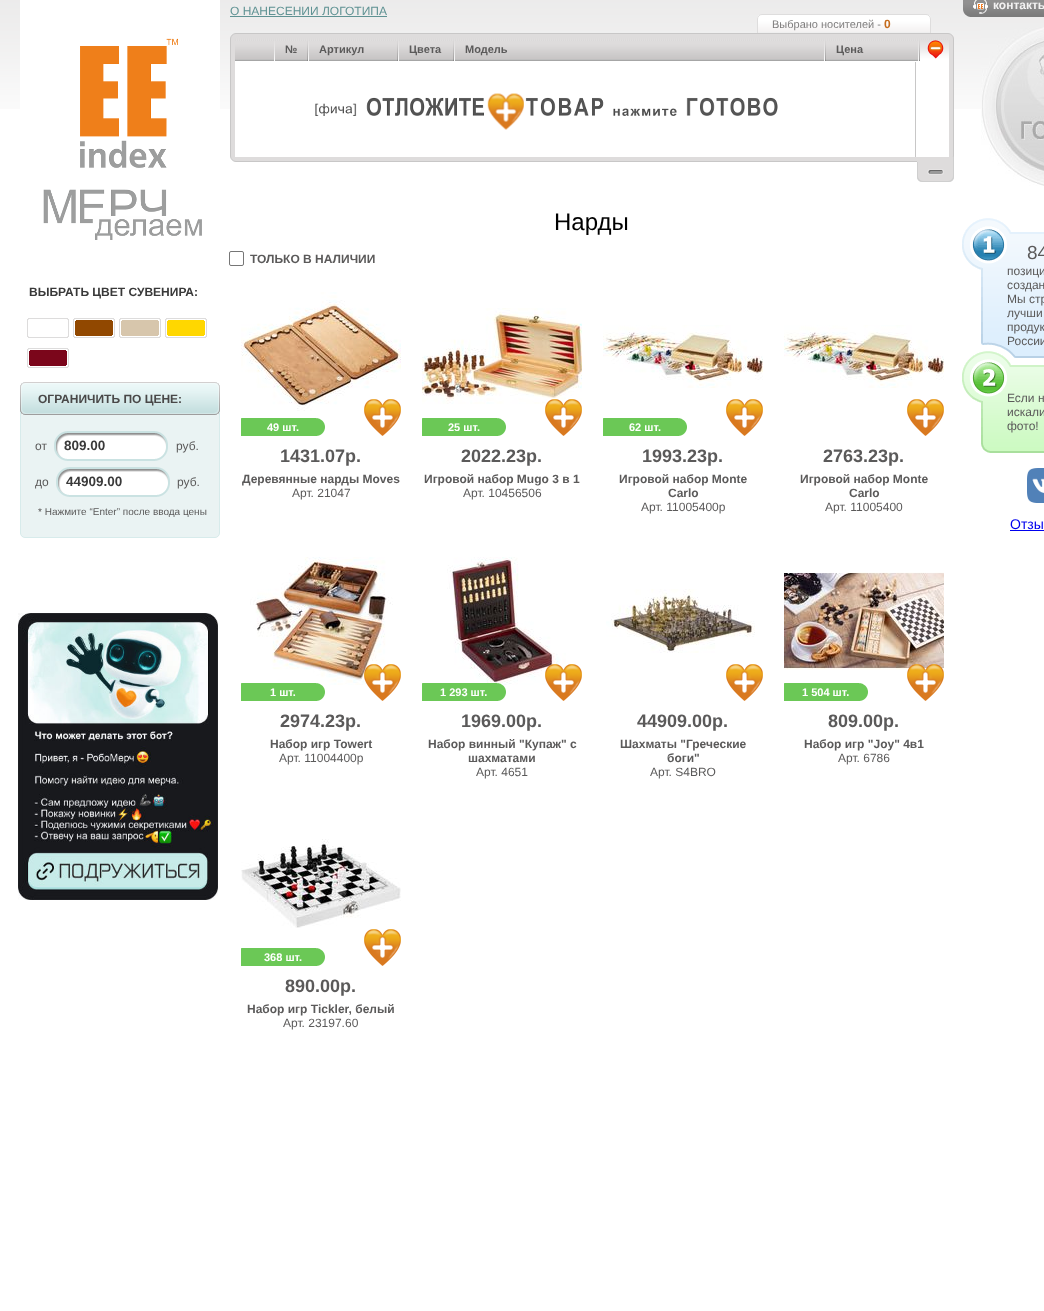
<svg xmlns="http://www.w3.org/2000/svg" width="1044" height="1311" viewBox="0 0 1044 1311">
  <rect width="100%" height="100%" fill="#ffffff"/>
  <image x="0" y="0" width="1044" height="109" href="img1.png"/>
  <rect x="20" y="0" width="200" height="109" fill="#ffffff"/>
  <image x="43" y="38" width="159" height="202" href="img2.png"/>
  <text x="29" y="296" font-family="Liberation Sans" font-size="12" font-weight="bold" fill="#393939">ВЫБРАТЬ ЦВЕТ СУВЕНИРА:</text>
  <image x="27" y="318" width="42" height="20" href="img3.png"/>
  <rect x="75" y="320" width="38" height="16" fill="#914800"/>
  <image x="71" y="316" width="46" height="24" href="img4.png"/>
  <rect x="121" y="320" width="38" height="16" fill="#d7c6ac"/>
  <image x="117" y="316" width="46" height="24" href="img5.png"/>
  <rect x="167" y="320" width="38" height="16" fill="#ffd700"/>
  <image x="163" y="316" width="46" height="24" href="img6.png"/>
  <rect x="29" y="350" width="38" height="16" fill="#7b061b"/>
  <image x="25" y="346" width="46" height="24" href="img7.png"/>
  <rect x="20.5" y="382.5" width="199" height="155" rx="4.5" fill="#eaf3f3" stroke="#d7ebeb"/>
  <image x="20" y="382" width="200" height="33" href="img8.png"/>
  <text x="38" y="403" font-family="Liberation Sans" font-size="12" font-weight="bold" fill="#494848">ОГРАНИЧИТЬ ПО ЦЕНЕ:</text>
  <text x="35" y="450" font-family="Liberation Sans" font-size="12" fill="#5b5a5a">от</text>
  <image x="54" y="431" width="114" height="30" href="img9.png"/>
  <text x="64" y="450" font-family="Liberation Sans" font-size="13.5" font-weight="bold" fill="#393939">809.00</text>
  <text x="176" y="450" font-family="Liberation Sans" font-size="12" fill="#5b5a5a">руб.</text>
  <text x="35" y="486" font-family="Liberation Sans" font-size="12" fill="#5b5a5a">до</text>
  <image x="56" y="467" width="114" height="30" href="img9.png"/>
  <text x="66" y="486" font-family="Liberation Sans" font-size="13.5" font-weight="bold" fill="#393939">44909.00</text>
  <text x="177" y="486" font-family="Liberation Sans" font-size="12" fill="#5b5a5a">руб.</text>
  <text x="38" y="515" font-family="Liberation Sans" font-size="10" fill="#5b5a5a">* Нажмите “Enter” после ввода цены</text>
  <image x="18" y="613" width="200" height="287" href="img10.png"/>
  <text x="230" y="15" font-family="Liberation Sans" font-size="12" fill="#5f9293">О НАНЕСЕНИИ ЛОГОТИПА</text>
  <rect x="230" y="16" width="157" height="1" fill="#5f9293"/>
  <image x="757" y="15" width="174" height="17" href="img11.png"/>
  <rect x="757.5" y="14.5" width="173" height="23" rx="4.5" fill="none" stroke="#dedddd"/>
  <text x="772" y="28" font-family="Liberation Sans" font-size="11" fill="#7f7e7e">Выбрано носителей -</text>
  <text x="884" y="28" font-family="Liberation Sans" font-size="12" font-weight="bold" fill="#c56c1d">0</text>
  <rect x="230.5" y="33.5" width="723" height="128" rx="5.5" fill="#dedcdc" stroke="#c8c7c7"/>
  <rect x="235" y="61" width="714" height="96" fill="#ffffff"/>
  <image x="235" y="38" width="714" height="23" href="img12.png"/>
  <image x="235" y="41" width="39" height="20" href="img13.png"/>
  <image x="275" y="41" width="32" height="20" href="img14.png"/>
  <text x="285" y="53" font-family="Liberation Sans" font-size="11" font-weight="bold" fill="#5b5a5a">№</text>
  <image x="309" y="41" width="88" height="20" href="img15.png"/>
  <text x="319" y="53" font-family="Liberation Sans" font-size="11" font-weight="bold" fill="#5b5a5a">Артикул</text>
  <image x="399" y="41" width="54" height="20" href="img16.png"/>
  <text x="409" y="53" font-family="Liberation Sans" font-size="11" font-weight="bold" fill="#5b5a5a">Цвета</text>
  <image x="455" y="41" width="369" height="20" href="img17.png"/>
  <text x="465" y="53" font-family="Liberation Sans" font-size="11" font-weight="bold" fill="#5b5a5a">Модель</text>
  <image x="826" y="41" width="92" height="20" href="img18.png"/>
  <text x="836" y="53" font-family="Liberation Sans" font-size="11" font-weight="bold" fill="#5b5a5a">Цена</text>
  <image x="920" y="40" width="29" height="21" href="img19.png"/>
  <image x="315" y="93" width="463" height="37" href="img20.png"/>
  <rect x="915" y="62" width="1" height="95" fill="#c8c7c7"/>
  <image x="917" y="157" width="37" height="25" href="img21.png"/>
  <text x="554" y="230" font-family="Liberation Sans" font-size="24" fill="#000000">Нарды</text>
  <image x="241" y="292" width="160" height="119" href="img22.png"/>
  <image x="241" y="418" width="84" height="18" href="img23.png"/>
  <text x="267" y="431" font-family="Liberation Sans" font-size="11" font-weight="bold" fill="#ffffff">49 шт.</text>
  <image x="364" y="399" width="37" height="37" href="img24.png"/>
  <text x="280" y="462" font-family="Liberation Sans" font-size="18" font-weight="bold" fill="#5b5a5a">1431.07р.</text>
  <text x="242" y="483" font-family="Liberation Sans" font-size="12" font-weight="bold" fill="#5b5a5a">Деревянные нарды Moves</text>
  <text x="292" y="497" font-family="Liberation Sans" font-size="12" fill="#5b5a5a">Арт. 21047</text>
  <image x="422" y="308" width="160" height="96" href="img25.png"/>
  <image x="422" y="418" width="84" height="18" href="img23.png"/>
  <text x="448" y="431" font-family="Liberation Sans" font-size="11" font-weight="bold" fill="#ffffff">25 шт.</text>
  <image x="545" y="399" width="37" height="37" href="img26.png"/>
  <text x="461" y="462" font-family="Liberation Sans" font-size="18" font-weight="bold" fill="#5b5a5a">2022.23р.</text>
  <text x="424" y="483" font-family="Liberation Sans" font-size="12" font-weight="bold" fill="#5b5a5a">Игровой набор Mugo 3 в 1</text>
  <text x="463" y="497" font-family="Liberation Sans" font-size="12" fill="#5b5a5a">Арт. 10456506</text>
  <image x="603" y="325" width="160" height="63" href="img27.png"/>
  <image x="603" y="418" width="84" height="18" href="img23.png"/>
  <text x="629" y="431" font-family="Liberation Sans" font-size="11" font-weight="bold" fill="#ffffff">62 шт.</text>
  <image x="726" y="399" width="37" height="37" href="img24.png"/>
  <text x="642" y="462" font-family="Liberation Sans" font-size="18" font-weight="bold" fill="#5b5a5a">1993.23р.</text>
  <text x="619" y="483" font-family="Liberation Sans" font-size="12" font-weight="bold" fill="#5b5a5a">Игровой набор Monte</text>
  <text x="668" y="497" font-family="Liberation Sans" font-size="12" font-weight="bold" fill="#5b5a5a">Carlo</text>
  <text x="641" y="511" font-family="Liberation Sans" font-size="12" fill="#5b5a5a">Арт. 11005400p</text>
  <image x="784" y="325" width="160" height="63" href="img27.png"/>
  <image x="907" y="399" width="37" height="37" href="img24.png"/>
  <text x="823" y="462" font-family="Liberation Sans" font-size="18" font-weight="bold" fill="#5b5a5a">2763.23р.</text>
  <text x="800" y="483" font-family="Liberation Sans" font-size="12" font-weight="bold" fill="#5b5a5a">Игровой набор Monte</text>
  <text x="849" y="497" font-family="Liberation Sans" font-size="12" font-weight="bold" fill="#5b5a5a">Carlo</text>
  <text x="825" y="511" font-family="Liberation Sans" font-size="12" fill="#5b5a5a">Арт. 11005400</text>
  <image x="250" y="557" width="143" height="128" href="img28.png"/>
  <image x="241" y="683" width="84" height="18" href="img29.png"/>
  <text x="270" y="696" font-family="Liberation Sans" font-size="11" font-weight="bold" fill="#ffffff">1 шт.</text>
  <image x="364" y="664" width="37" height="37" href="img30.png"/>
  <text x="280" y="727" font-family="Liberation Sans" font-size="18" font-weight="bold" fill="#5b5a5a">2974.23р.</text>
  <text x="270" y="748" font-family="Liberation Sans" font-size="12" font-weight="bold" fill="#5b5a5a">Набор игр Towert</text>
  <text x="279" y="762" font-family="Liberation Sans" font-size="12" fill="#5b5a5a">Арт. 11004400p</text>
  <image x="447" y="557" width="119" height="128" href="img31.png"/>
  <image x="422" y="683" width="84" height="18" href="img32.png"/>
  <text x="440" y="696" font-family="Liberation Sans" font-size="11" font-weight="bold" fill="#ffffff">1 293 шт.</text>
  <image x="545" y="664" width="37" height="37" href="img33.png"/>
  <text x="461" y="727" font-family="Liberation Sans" font-size="18" font-weight="bold" fill="#5b5a5a">1969.00р.</text>
  <text x="428" y="748" font-family="Liberation Sans" font-size="12" font-weight="bold" fill="#5b5a5a">Набор винный "Купаж" с</text>
  <text x="468" y="762" font-family="Liberation Sans" font-size="12" font-weight="bold" fill="#5b5a5a">шахматами</text>
  <text x="476" y="776" font-family="Liberation Sans" font-size="12" fill="#5b5a5a">Арт. 4651</text>
  <image x="606" y="589" width="149" height="64" href="img34.png"/>
  <image x="726" y="664" width="37" height="37" href="img24.png"/>
  <text x="637" y="727" font-family="Liberation Sans" font-size="18" font-weight="bold" fill="#5b5a5a">44909.00р.</text>
  <text x="620" y="748" font-family="Liberation Sans" font-size="12" font-weight="bold" fill="#5b5a5a">Шахматы "Греческие</text>
  <text x="667" y="762" font-family="Liberation Sans" font-size="12" font-weight="bold" fill="#5b5a5a">боги"</text>
  <text x="650" y="776" font-family="Liberation Sans" font-size="12" fill="#5b5a5a">Арт. S4BRO</text>
  <image x="784" y="572" width="160" height="98" href="img35.png"/>
  <image x="784" y="683" width="84" height="18" href="img23.png"/>
  <text x="802" y="696" font-family="Liberation Sans" font-size="11" font-weight="bold" fill="#ffffff">1 504 шт.</text>
  <image x="907" y="664" width="37" height="37" href="img36.png"/>
  <text x="828" y="727" font-family="Liberation Sans" font-size="18" font-weight="bold" fill="#5b5a5a">809.00р.</text>
  <text x="804" y="748" font-family="Liberation Sans" font-size="12" font-weight="bold" fill="#5b5a5a">Набор игр "Joy" 4в1</text>
  <text x="838" y="762" font-family="Liberation Sans" font-size="12" fill="#5b5a5a">Арт. 6786</text>
  <image x="241" y="839" width="160" height="89" href="img37.png"/>
  <image x="241" y="948" width="84" height="18" href="img23.png"/>
  <text x="264" y="961" font-family="Liberation Sans" font-size="11" font-weight="bold" fill="#ffffff">368 шт.</text>
  <image x="364" y="929" width="37" height="37" href="img24.png"/>
  <text x="285" y="992" font-family="Liberation Sans" font-size="18" font-weight="bold" fill="#5b5a5a">890.00р.</text>
  <text x="247" y="1013" font-family="Liberation Sans" font-size="12" font-weight="bold" fill="#5b5a5a">Набор игр Tickler, белый</text>
  <text x="283" y="1027" font-family="Liberation Sans" font-size="12" fill="#5b5a5a">Арт. 23197.60</text>
  <rect x="229.5" y="251.5" width="14" height="14" rx="1.5" fill="none" stroke="#767676"/>
  <text x="250" y="263" font-family="Liberation Sans" font-size="12" font-weight="bold" fill="#5b5a5a">ТОЛЬКО В НАЛИЧИИ</text>
  <image x="963" y="0" width="81" height="17" href="img38.png"/>
  <text x="993" y="9" font-family="Liberation Sans" font-size="12" font-weight="bold" fill="#f3f2f2">контакты</text>
  <image x="981" y="27" width="63" height="159" href="img39.png"/>
  <image x="962" y="218" width="82" height="235" href="img40.png"/>
  <text x="1027" y="259" font-family="Liberation Sans" font-size="19" fill="#5b5a5a">84</text>
  <text x="1007" y="275" font-family="Liberation Sans" font-size="12" fill="#5b5a5a">позици</text>
  <text x="1007" y="289" font-family="Liberation Sans" font-size="12" fill="#5b5a5a">создан</text>
  <text x="1007" y="303" font-family="Liberation Sans" font-size="12" fill="#5b5a5a">Мы стр</text>
  <text x="1007" y="317" font-family="Liberation Sans" font-size="12" fill="#5b5a5a">лучши</text>
  <text x="1007" y="331" font-family="Liberation Sans" font-size="12" fill="#5b5a5a">продук</text>
  <text x="1007" y="345" font-family="Liberation Sans" font-size="12" fill="#5b5a5a">России</text>
  <text x="1007" y="402" font-family="Liberation Sans" font-size="12" fill="#5b5a5a">Если н</text>
  <text x="1007" y="416" font-family="Liberation Sans" font-size="12" fill="#5b5a5a">искали</text>
  <text x="1007" y="430" font-family="Liberation Sans" font-size="12" fill="#5b5a5a">фото!</text>
  <image x="1027" y="468" width="17" height="35" href="img41.png"/>
  <text x="1010" y="529" font-family="Liberation Sans" font-size="14" fill="#0000ee">Отзы</text>
  <rect x="1010" y="530" width="34" height="1" fill="#0000ee"/>
</svg>
